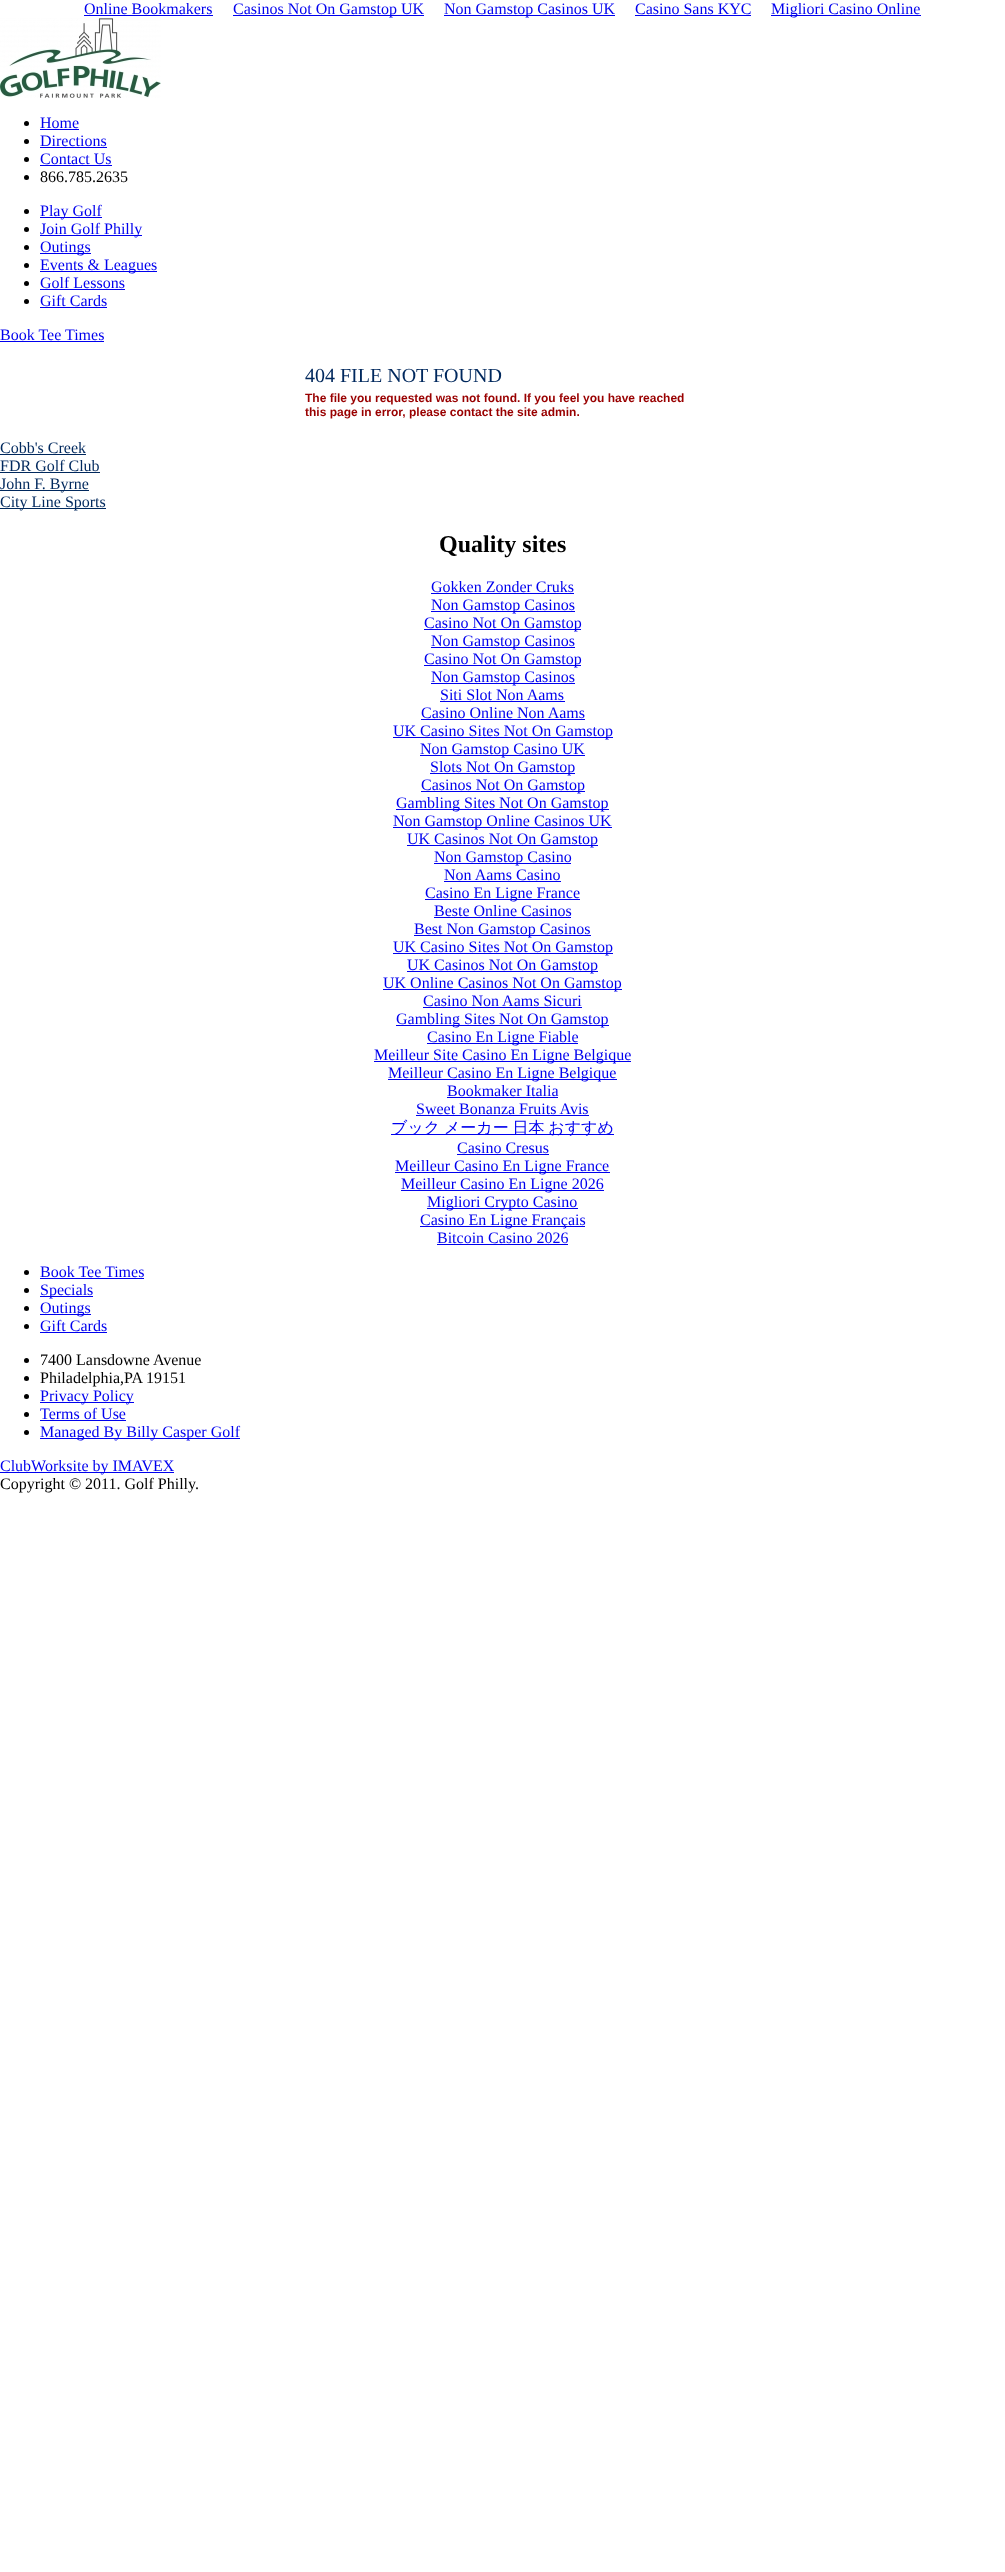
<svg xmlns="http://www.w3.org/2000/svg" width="1005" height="2572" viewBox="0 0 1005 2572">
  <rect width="100%" height="100%" fill="#ffffff"/>
  <text x="84" y="14" font-family="Liberation Serif" font-size="16" fill="#0000ee">Online Bookmakers</text>
  <rect x="84" y="15" width="129" height="1" fill="#0000ee"/>
  <rect x="233" y="15" width="191" height="1" fill="#0000ee"/>
  <text x="233" y="14" font-family="Liberation Serif" font-size="16" fill="#0000ee">Casinos Not On Gamstop UK</text>
  <rect x="444" y="15" width="171" height="1" fill="#0000ee"/>
  <text x="444" y="14" font-family="Liberation Serif" font-size="16" fill="#0000ee">Non Gamstop Casinos UK</text>
  <text x="635" y="14" font-family="Liberation Serif" font-size="16" fill="#0000ee">Casino Sans KYC</text>
  <rect x="635" y="15" width="116" height="1" fill="#0000ee"/>
  <rect x="771" y="15" width="150" height="1" fill="#0000ee"/>
  <text x="771" y="14" font-family="Liberation Serif" font-size="16" fill="#0000ee">Migliori Casino Online</text>
  <image x="0" y="18" width="161" height="80" href="img1.png"/>
  <circle cx="26.5" cy="123.5" r="2.5" fill="#000000"/>
  <text x="40" y="128" font-family="Liberation Serif" font-size="16" fill="#0000ee">Home</text>
  <rect x="40" y="129" width="39" height="1" fill="#0000ee"/>
  <circle cx="26.5" cy="141.5" r="2.5" fill="#000000"/>
  <text x="40" y="146" font-family="Liberation Serif" font-size="16" fill="#0000ee">Directions</text>
  <rect x="40" y="147" width="67" height="1" fill="#0000ee"/>
  <circle cx="26.5" cy="159.5" r="2.5" fill="#000000"/>
  <text x="40" y="164" font-family="Liberation Serif" font-size="16" fill="#0000ee">Contact Us</text>
  <rect x="40" y="165" width="72" height="1" fill="#0000ee"/>
  <circle cx="26.5" cy="177.5" r="2.5" fill="#000000"/>
  <text x="40" y="182" font-family="Liberation Serif" font-size="16" fill="#000000">866.785.2635</text>
  <circle cx="26.5" cy="211.5" r="2.5" fill="#000000"/>
  <rect x="40" y="217" width="62" height="1" fill="#0000ee"/>
  <text x="40" y="216" font-family="Liberation Serif" font-size="16" fill="#0000ee">Play Golf</text>
  <circle cx="26.5" cy="229.5" r="2.5" fill="#000000"/>
  <rect x="40" y="235" width="102" height="1" fill="#0000ee"/>
  <text x="40" y="234" font-family="Liberation Serif" font-size="16" fill="#0000ee">Join Golf Philly</text>
  <circle cx="26.5" cy="247.5" r="2.5" fill="#000000"/>
  <rect x="40" y="253" width="51" height="1" fill="#0000ee"/>
  <text x="40" y="252" font-family="Liberation Serif" font-size="16" fill="#0000ee">Outings</text>
  <circle cx="26.5" cy="265.5" r="2.5" fill="#000000"/>
  <rect x="40" y="271" width="117" height="1" fill="#0000ee"/>
  <text x="40" y="270" font-family="Liberation Serif" font-size="16" fill="#0000ee">Events &amp; Leagues</text>
  <circle cx="26.5" cy="283.5" r="2.5" fill="#000000"/>
  <text x="40" y="288" font-family="Liberation Serif" font-size="16" fill="#0000ee">Golf Lessons</text>
  <rect x="40" y="289" width="85" height="1" fill="#0000ee"/>
  <circle cx="26.5" cy="301.5" r="2.5" fill="#000000"/>
  <text x="40" y="306" font-family="Liberation Serif" font-size="16" fill="#0000ee">Gift Cards</text>
  <rect x="40" y="307" width="67" height="1" fill="#0000ee"/>
  <text x="0" y="340" font-family="Liberation Serif" font-size="16" fill="#0000ee">Book Tee Times</text>
  <rect x="0" y="341" width="104" height="1" fill="#0000ee"/>
  <text x="305" y="382" font-family="Liberation Serif" font-size="20" fill="#00285d">404 FILE NOT FOUND</text>
  <text x="305" y="402" font-family="Liberation Sans" font-size="12" font-weight="bold" fill="#990000">The file you requested was not found. If you feel you have reached</text>
  <text x="305" y="416" font-family="Liberation Sans" font-size="12" font-weight="bold" fill="#990000">this page in error, please contact the site admin.</text>
  <text x="0" y="453" font-family="Liberation Serif" font-size="16" fill="#00285d">Cobb's Creek</text>
  <rect x="0" y="454" width="86" height="1" fill="#00285d"/>
  <text x="0" y="471" font-family="Liberation Serif" font-size="16" fill="#00285d">FDR Golf Club</text>
  <rect x="0" y="472" width="100" height="1" fill="#00285d"/>
  <rect x="0" y="490" width="89" height="1" fill="#00285d"/>
  <text x="0" y="489" font-family="Liberation Serif" font-size="16" fill="#00285d">John F. Byrne</text>
  <rect x="0" y="508" width="106" height="1" fill="#00285d"/>
  <text x="0" y="507" font-family="Liberation Serif" font-size="16" fill="#00285d">City Line Sports</text>
  <text x="439" y="552" font-family="Liberation Serif" font-size="24" font-weight="bold" fill="#000000">Quality sites</text>
  <text x="431" y="592" font-family="Liberation Serif" font-size="16" fill="#0000ee">Gokken Zonder Cruks</text>
  <rect x="431" y="593" width="143" height="1" fill="#0000ee"/>
  <rect x="431" y="611" width="144" height="1" fill="#0000ee"/>
  <text x="431" y="610" font-family="Liberation Serif" font-size="16" fill="#0000ee">Non Gamstop Casinos</text>
  <rect x="424" y="629" width="157" height="1" fill="#0000ee"/>
  <text x="424" y="628" font-family="Liberation Serif" font-size="16" fill="#0000ee">Casino Not On Gamstop</text>
  <rect x="431" y="647" width="144" height="1" fill="#0000ee"/>
  <text x="431" y="646" font-family="Liberation Serif" font-size="16" fill="#0000ee">Non Gamstop Casinos</text>
  <rect x="424" y="665" width="157" height="1" fill="#0000ee"/>
  <text x="424" y="664" font-family="Liberation Serif" font-size="16" fill="#0000ee">Casino Not On Gamstop</text>
  <rect x="431" y="683" width="144" height="1" fill="#0000ee"/>
  <text x="431" y="682" font-family="Liberation Serif" font-size="16" fill="#0000ee">Non Gamstop Casinos</text>
  <text x="440" y="700" font-family="Liberation Serif" font-size="16" fill="#0000ee">Siti Slot Non Aams</text>
  <rect x="440" y="701" width="125" height="1" fill="#0000ee"/>
  <text x="421" y="718" font-family="Liberation Serif" font-size="16" fill="#0000ee">Casino Online Non Aams</text>
  <rect x="421" y="719" width="164" height="1" fill="#0000ee"/>
  <rect x="393" y="737" width="220" height="1" fill="#0000ee"/>
  <text x="393" y="736" font-family="Liberation Serif" font-size="16" fill="#0000ee">UK Casino Sites Not On Gamstop</text>
  <rect x="420" y="755" width="165" height="1" fill="#0000ee"/>
  <text x="420" y="754" font-family="Liberation Serif" font-size="16" fill="#0000ee">Non Gamstop Casino UK</text>
  <rect x="430" y="773" width="145" height="1" fill="#0000ee"/>
  <text x="430" y="772" font-family="Liberation Serif" font-size="16" fill="#0000ee">Slots Not On Gamstop</text>
  <rect x="421" y="791" width="164" height="1" fill="#0000ee"/>
  <text x="421" y="790" font-family="Liberation Serif" font-size="16" fill="#0000ee">Casinos Not On Gamstop</text>
  <rect x="396" y="809" width="213" height="1" fill="#0000ee"/>
  <text x="396" y="808" font-family="Liberation Serif" font-size="16" fill="#0000ee">Gambling Sites Not On Gamstop</text>
  <rect x="393" y="827" width="219" height="1" fill="#0000ee"/>
  <text x="393" y="826" font-family="Liberation Serif" font-size="16" fill="#0000ee">Non Gamstop Online Casinos UK</text>
  <rect x="407" y="845" width="191" height="1" fill="#0000ee"/>
  <text x="407" y="844" font-family="Liberation Serif" font-size="16" fill="#0000ee">UK Casinos Not On Gamstop</text>
  <rect x="434" y="863" width="137" height="1" fill="#0000ee"/>
  <text x="434" y="862" font-family="Liberation Serif" font-size="16" fill="#0000ee">Non Gamstop Casino</text>
  <text x="444" y="880" font-family="Liberation Serif" font-size="16" fill="#0000ee">Non Aams Casino</text>
  <rect x="444" y="881" width="117" height="1" fill="#0000ee"/>
  <rect x="425" y="899" width="155" height="1" fill="#0000ee"/>
  <text x="425" y="898" font-family="Liberation Serif" font-size="16" fill="#0000ee">Casino En Ligne France</text>
  <text x="434" y="916" font-family="Liberation Serif" font-size="16" fill="#0000ee">Beste Online Casinos</text>
  <rect x="434" y="917" width="137" height="1" fill="#0000ee"/>
  <rect x="414" y="935" width="177" height="1" fill="#0000ee"/>
  <text x="414" y="934" font-family="Liberation Serif" font-size="16" fill="#0000ee">Best Non Gamstop Casinos</text>
  <rect x="393" y="953" width="220" height="1" fill="#0000ee"/>
  <text x="393" y="952" font-family="Liberation Serif" font-size="16" fill="#0000ee">UK Casino Sites Not On Gamstop</text>
  <rect x="407" y="971" width="191" height="1" fill="#0000ee"/>
  <text x="407" y="970" font-family="Liberation Serif" font-size="16" fill="#0000ee">UK Casinos Not On Gamstop</text>
  <rect x="383" y="989" width="239" height="1" fill="#0000ee"/>
  <text x="383" y="988" font-family="Liberation Serif" font-size="16" fill="#0000ee">UK Online Casinos Not On Gamstop</text>
  <text x="423" y="1006" font-family="Liberation Serif" font-size="16" fill="#0000ee">Casino Non Aams Sicuri</text>
  <rect x="423" y="1007" width="159" height="1" fill="#0000ee"/>
  <rect x="396" y="1025" width="213" height="1" fill="#0000ee"/>
  <text x="396" y="1024" font-family="Liberation Serif" font-size="16" fill="#0000ee">Gambling Sites Not On Gamstop</text>
  <rect x="427" y="1043" width="151" height="1" fill="#0000ee"/>
  <text x="427" y="1042" font-family="Liberation Serif" font-size="16" fill="#0000ee">Casino En Ligne Fiable</text>
  <rect x="374" y="1061" width="257" height="1" fill="#0000ee"/>
  <text x="374" y="1060" font-family="Liberation Serif" font-size="16" fill="#0000ee">Meilleur Site Casino En Ligne Belgique</text>
  <rect x="388" y="1079" width="229" height="1" fill="#0000ee"/>
  <text x="388" y="1078" font-family="Liberation Serif" font-size="16" fill="#0000ee">Meilleur Casino En Ligne Belgique</text>
  <text x="447" y="1096" font-family="Liberation Serif" font-size="16" fill="#0000ee">Bookmaker Italia</text>
  <rect x="447" y="1097" width="111" height="1" fill="#0000ee"/>
  <text x="416" y="1114" font-family="Liberation Serif" font-size="16" fill="#0000ee">Sweet Bonanza Fruits Avis</text>
  <rect x="416" y="1115" width="173" height="1" fill="#0000ee"/>
  <rect x="391" y="1134" width="223" height="1" fill="#0000ee"/>
  <text x="391" y="1133" word-spacing="-1" font-family="WenQuanYi Zen Hei" font-size="16" font-weight="500" fill="#0000ee">ブック メーカー 日本 おすすめ</text>
  <text x="457" y="1153" font-family="Liberation Serif" font-size="16" fill="#0000ee">Casino Cresus</text>
  <rect x="457" y="1154" width="92" height="1" fill="#0000ee"/>
  <rect x="395" y="1172" width="215" height="1" fill="#0000ee"/>
  <text x="395" y="1171" font-family="Liberation Serif" font-size="16" fill="#0000ee">Meilleur Casino En Ligne France</text>
  <rect x="401" y="1190" width="203" height="1" fill="#0000ee"/>
  <text x="401" y="1189" font-family="Liberation Serif" font-size="16" fill="#0000ee">Meilleur Casino En Ligne 2026</text>
  <rect x="427" y="1208" width="151" height="1" fill="#0000ee"/>
  <text x="427" y="1207" font-family="Liberation Serif" font-size="16" fill="#0000ee">Migliori Crypto Casino</text>
  <rect x="420" y="1226" width="165" height="1" fill="#0000ee"/>
  <text x="420" y="1225" font-family="Liberation Serif" font-size="16" fill="#0000ee">Casino En Ligne Français</text>
  <text x="437" y="1243" font-family="Liberation Serif" font-size="16" fill="#0000ee">Bitcoin Casino 2026</text>
  <rect x="437" y="1244" width="131" height="1" fill="#0000ee"/>
  <circle cx="26.5" cy="1272.5" r="2.5" fill="#000000"/>
  <text x="40" y="1277" font-family="Liberation Serif" font-size="16" fill="#0000ee">Book Tee Times</text>
  <rect x="40" y="1278" width="104" height="1" fill="#0000ee"/>
  <circle cx="26.5" cy="1290.5" r="2.5" fill="#000000"/>
  <rect x="40" y="1296" width="53" height="1" fill="#0000ee"/>
  <text x="40" y="1295" font-family="Liberation Serif" font-size="16" fill="#0000ee">Specials</text>
  <circle cx="26.5" cy="1308.5" r="2.5" fill="#000000"/>
  <rect x="40" y="1314" width="51" height="1" fill="#0000ee"/>
  <text x="40" y="1313" font-family="Liberation Serif" font-size="16" fill="#0000ee">Outings</text>
  <circle cx="26.5" cy="1326.5" r="2.5" fill="#000000"/>
  <text x="40" y="1331" font-family="Liberation Serif" font-size="16" fill="#0000ee">Gift Cards</text>
  <rect x="40" y="1332" width="67" height="1" fill="#0000ee"/>
  <circle cx="26.5" cy="1360.5" r="2.5" fill="#000000"/>
  <text x="40" y="1365" font-family="Liberation Serif" font-size="16" fill="#000000">7400 Lansdowne Avenue</text>
  <circle cx="26.5" cy="1378.5" r="2.5" fill="#000000"/>
  <text x="40" y="1383" font-family="Liberation Serif" font-size="16" fill="#000000">Philadelphia,PA 19151</text>
  <circle cx="26.5" cy="1396.5" r="2.5" fill="#000000"/>
  <rect x="40" y="1402" width="94" height="1" fill="#0000ee"/>
  <text x="40" y="1401" font-family="Liberation Serif" font-size="16" fill="#0000ee">Privacy Policy</text>
  <circle cx="26.5" cy="1414.5" r="2.5" fill="#000000"/>
  <text x="40" y="1419" font-family="Liberation Serif" font-size="16" fill="#0000ee">Terms of Use</text>
  <rect x="40" y="1420" width="86" height="1" fill="#0000ee"/>
  <circle cx="26.5" cy="1432.5" r="2.5" fill="#000000"/>
  <rect x="40" y="1438" width="200" height="1" fill="#0000ee"/>
  <text x="40" y="1437" font-family="Liberation Serif" font-size="16" fill="#0000ee">Managed By Billy Casper Golf</text>
  <rect x="0" y="1472" width="174" height="1" fill="#0000ee"/>
  <text x="0" y="1471" font-family="Liberation Serif" font-size="16" fill="#0000ee">ClubWorksite by IMAVEX</text>
  <text x="0" y="1489" font-family="Liberation Serif" font-size="16" fill="#000000">Copyright © 2011. Golf Philly.</text>
</svg>
